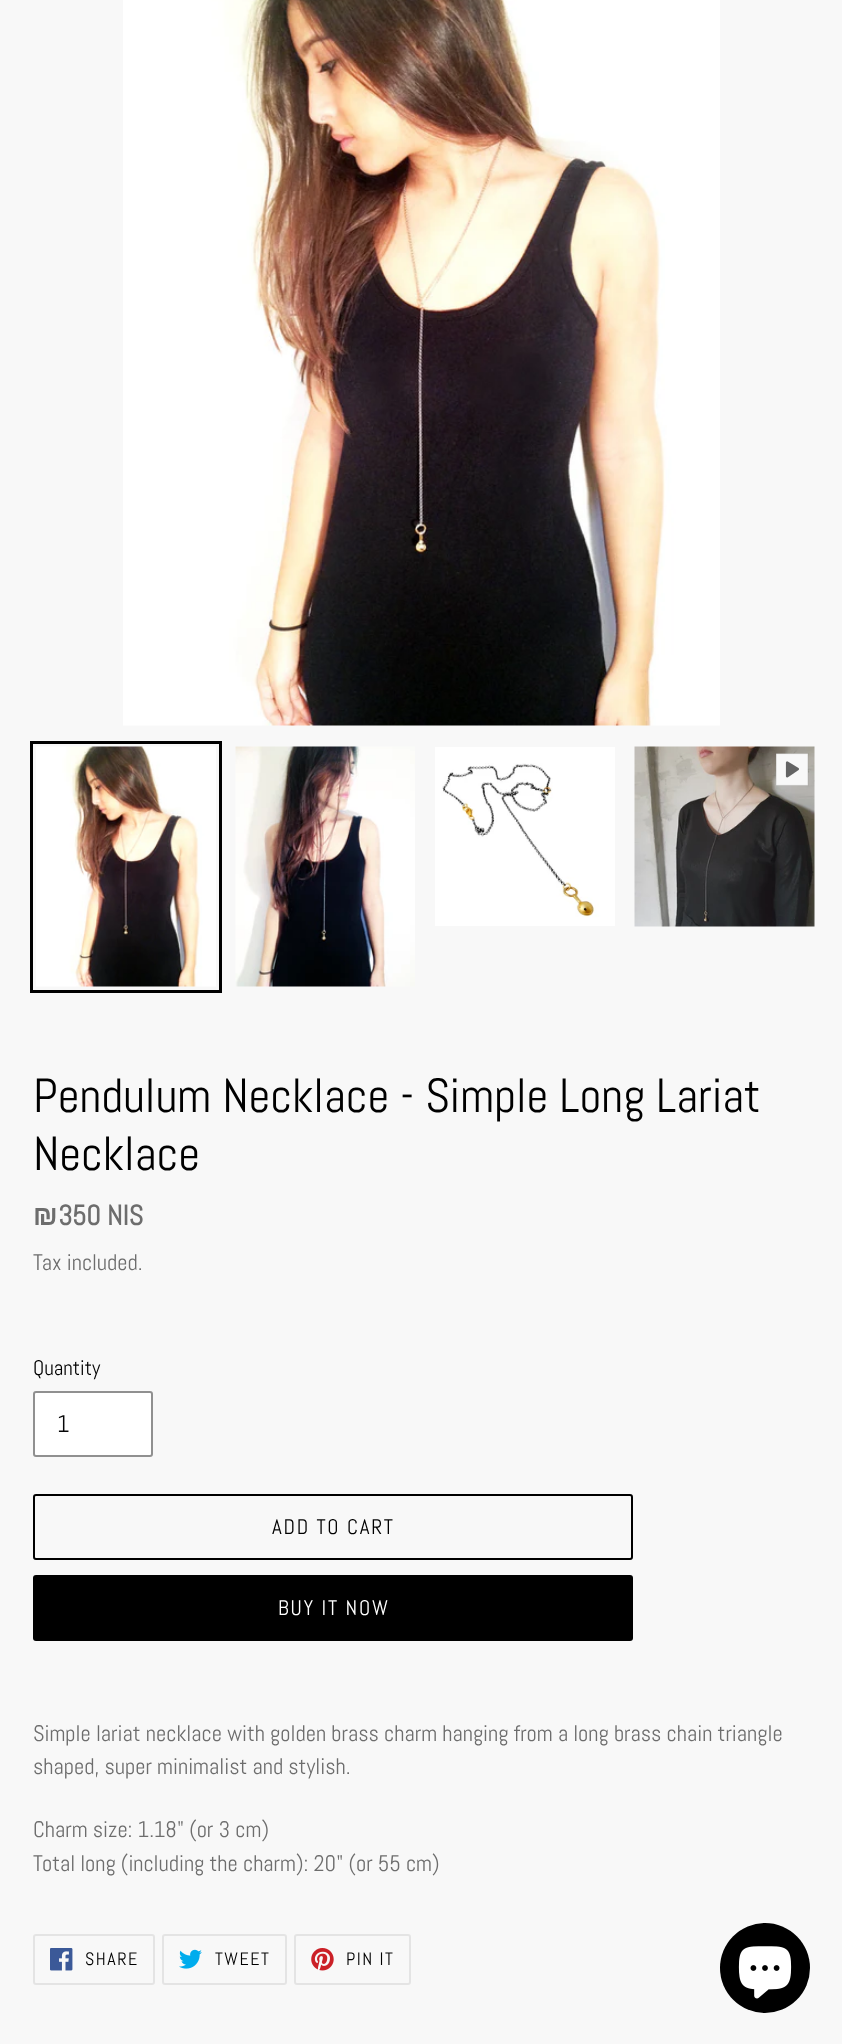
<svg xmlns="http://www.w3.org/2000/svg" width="842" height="2044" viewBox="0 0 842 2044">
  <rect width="100%" height="100%" fill="#f8f8f8"/>
  <image x="123" y="0" width="597" height="726" href="img1.png"/>
  <rect x="31.5" y="742.5" width="189" height="249" fill="none" stroke="#000000" stroke-width="3"/>
  <image x="36" y="746" width="180" height="241" href="img2.png"/>
  <image x="235" y="746" width="180" height="241" href="img3.png"/>
  <image x="435" y="747" width="180" height="179" href="img4.png"/>
  <image x="634" y="746" width="181" height="181" href="img5.png"/>
  <image x="776" y="753" width="33" height="33" href="img6.png"/>
  <text x="33" y="1112" font-family="Abel" font-size="48" fill="#000000">Pendulum Necklace - Simple Long Lariat</text>
  <text x="33" y="1170" font-family="Abel" font-size="48" fill="#000000">Necklace</text>
  <text x="33" y="1225" font-family="Liberation Sans" font-size="28" font-weight="bold" fill="#6d6d6d">₪</text>
  <text x="58" y="1225" font-family="Abel" font-size="28" font-weight="bold" fill="#6d6d6d">350 NIS</text>
  <text x="33" y="1270" font-family="Abel" font-size="22.5" fill="#6d6d6d">Tax included.</text>
  <text x="33" y="1375" font-family="Abel" font-size="21" fill="#000000">Quantity</text>
  <rect x="34" y="1392" width="118" height="64" rx="2" fill="#ffffff" stroke="#909090" stroke-width="2"/>
  <text x="57" y="1432" font-family="Abel" font-size="24" fill="#060607">1</text>
  <rect x="34" y="1495" width="598" height="64" rx="2" fill="none" stroke="#000000" stroke-width="2"/>
  <text x="272" y="1534" font-family="Abel" font-size="21" letter-spacing="1.75" fill="#000000">ADD TO CART</text>
  <rect x="33" y="1575" width="600" height="66" rx="3" fill="#000000"/>
  <text x="278" y="1615" font-family="Abel" font-size="21" letter-spacing="1.75" fill="#ffffff">BUY IT NOW</text>
  <text x="33" y="1741" font-family="Abel" font-size="22.5" fill="#6d6d6d">Simple lariat necklace with golden brass charm hanging from a long brass chain triangle</text>
  <text x="33" y="1774" font-family="Abel" font-size="22.5" fill="#6d6d6d">shaped, super minimalist and stylish.</text>
  <text x="33" y="1837" font-family="Abel" font-size="22.5" fill="#6d6d6d">Charm size: 1.18" (or 3 cm)</text>
  <text x="33" y="1871" font-family="Abel" font-size="22.5" fill="#6d6d6d">Total long (including the charm): 20" (or 55 cm)</text>
  <rect x="34" y="1935" width="120" height="49" rx="2" fill="none" stroke="#e4e4e4" stroke-width="2"/>
  <image x="50" y="1948" width="23" height="23" href="img7.png"/>
  <text x="85" y="1965" font-family="Abel" font-size="18" letter-spacing="1.5" fill="#000000">SHARE</text>
  <rect x="163" y="1935" width="123" height="49" rx="2" fill="none" stroke="#e4e4e4" stroke-width="2"/>
  <image x="179" y="1949" width="23" height="20" href="img8.png"/>
  <text x="215" y="1965" font-family="Abel" font-size="18" letter-spacing="1.5" fill="#000000">TWEET</text>
  <rect x="295" y="1935" width="115" height="49" rx="2" fill="none" stroke="#e4e4e4" stroke-width="2"/>
  <image x="311" y="1948" width="23" height="23" href="img9.png"/>
  <text x="346" y="1965" font-family="Abel" font-size="18" letter-spacing="1.5" fill="#000000">PIN IT</text>
  <circle cx="765" cy="1968" r="45" fill="#000000"/>
  <image x="738" y="1946" width="54" height="53" href="img10.png"/>
</svg>
